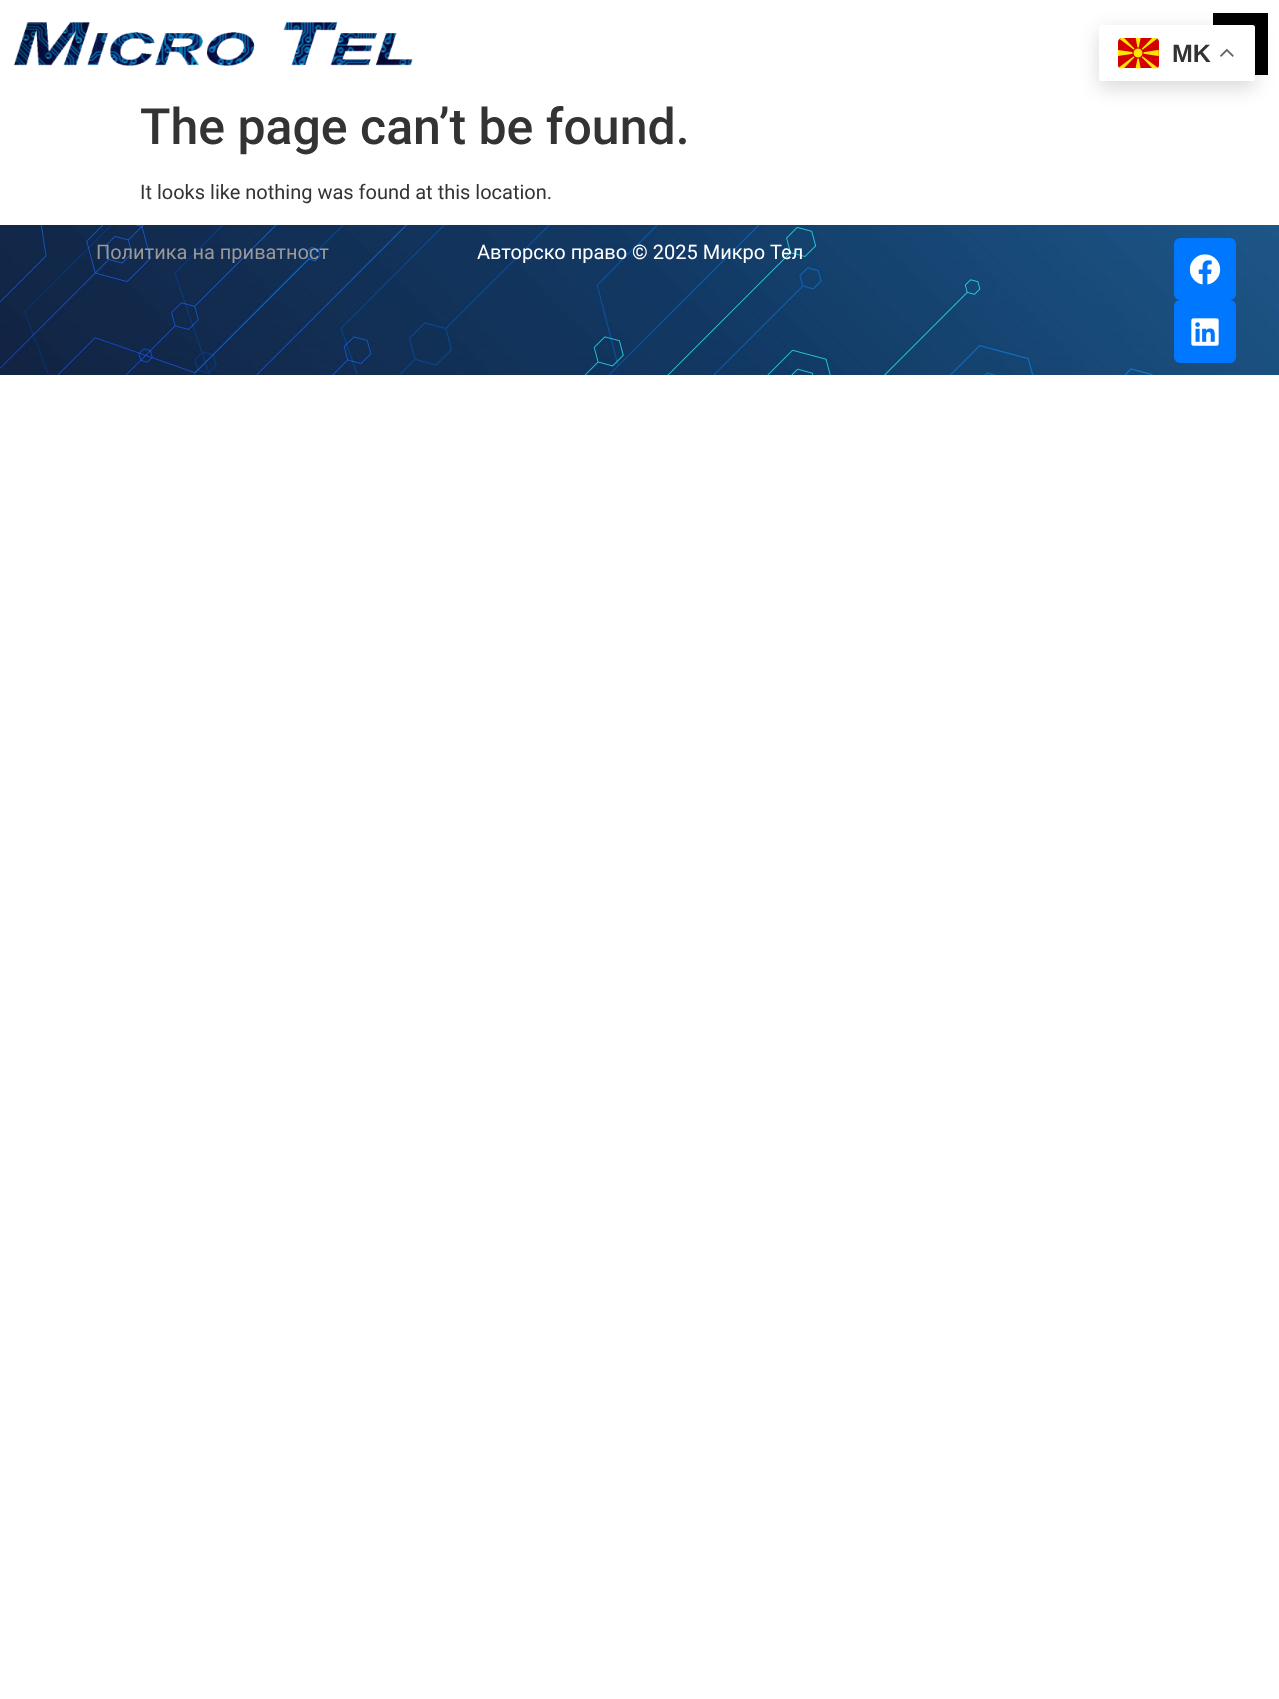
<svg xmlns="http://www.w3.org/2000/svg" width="1279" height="1699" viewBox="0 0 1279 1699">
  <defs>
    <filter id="blur1" x="-50%" y="-200%" width="200%" height="500%"><feGaussianBlur stdDeviation="9.5"/></filter>
  </defs>
  <rect width="100%" height="100%" fill="#ffffff"/>
  <rect x="1213" y="13" width="55" height="62" fill="#000000"/>
  <rect x="1099" y="31" width="156" height="57" rx="2.5" fill="#000000" fill-opacity="0.15" filter="url(#blur1)"/>
  <rect x="1099" y="25" width="156" height="56" rx="2.5" fill="#ffffff"/>
  <image x="1118" y="38" width="41" height="31" href="img1.png"/>
  <text x="1172" y="62" font-family="Liberation Sans" font-size="25" font-weight="bold" fill="#333333">MK</text>
  <image x="1220" y="48" width="14" height="9" href="img2.png"/>
  <image x="14" y="22" width="399" height="44" href="img3.png"/>
  <text x="140" y="144" font-family="Roboto" font-size="50" font-weight="500" fill="#333333">The page can’t be found.</text>
  <text x="140" y="199" font-family="Roboto" font-size="20" fill="#333333">It looks like nothing was found at this location.</text>
  <image x="0" y="225" width="1279" height="150" href="img4.png"/>
  <text x="96" y="259" font-family="Roboto" font-size="20" fill="#999999">Политика на приватност</text>
  <text x="477" y="259" font-family="Roboto" font-size="20" fill="#ffffff">Авторско право © 2025 Микро Тел</text>
  <rect x="1174" y="238" width="62" height="62" rx="6" fill="#0077ff"/>
  <image x="1189" y="254" width="32" height="31" href="img5.png"/>
  <rect x="1174" y="300" width="62" height="63" rx="6" fill="#0077ff"/>
  <image x="1191" y="318" width="28" height="28" href="img6.png"/>
</svg>
